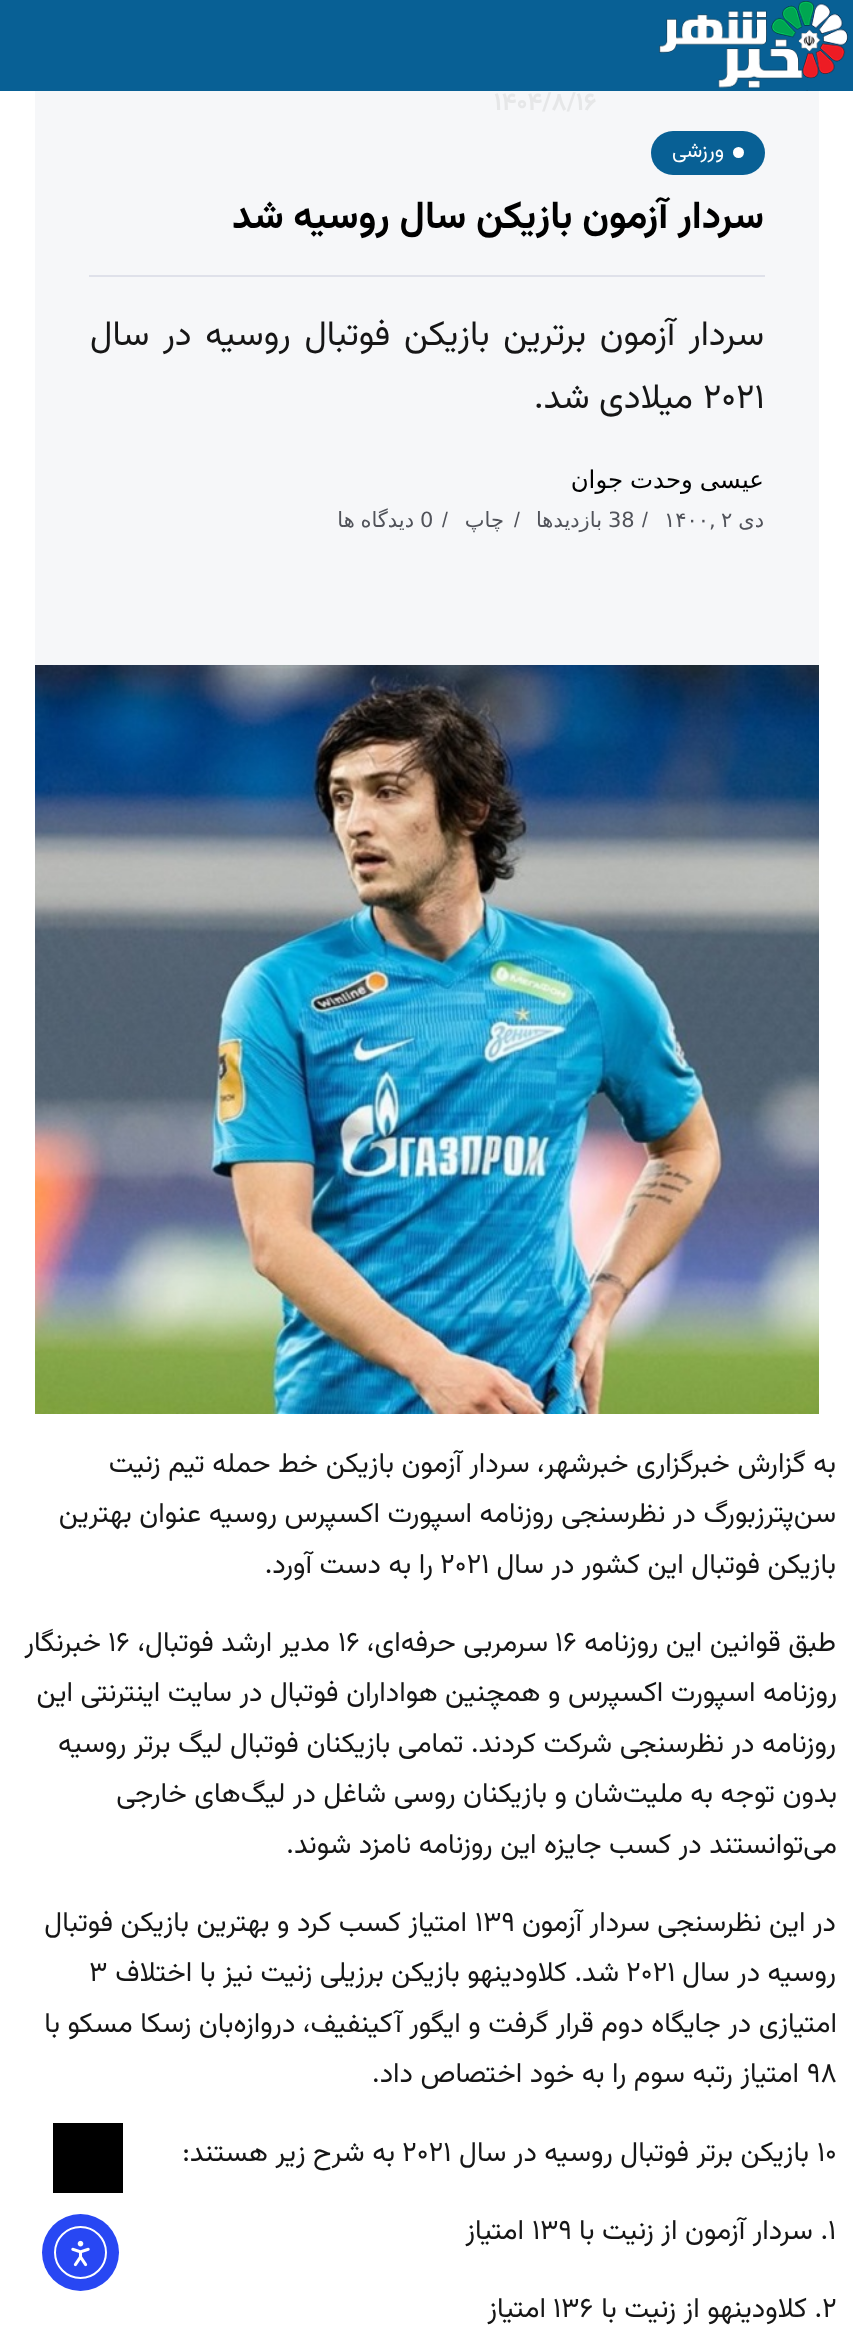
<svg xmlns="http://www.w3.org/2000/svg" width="853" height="2332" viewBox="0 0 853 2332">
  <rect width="100%" height="100%" fill="#ffffff"/>
  <rect x="0" y="0" width="853" height="91" fill="#086095"/>
  <image x="659" y="1" width="189" height="90" href="img1.png"/>
  <rect x="35" y="91" width="784" height="574" fill="#f6f7f9"/>
  <text x="494" y="110" font-family="Vazirmatn" font-size="25" font-weight="bold" fill="#e6e7e8">۱۴۰۴/۸/۱۶</text>
  <rect x="651" y="131" width="114" height="44" rx="22" fill="#086095"/>
  <circle cx="738.5" cy="152.5" r="5.5" fill="#ffffff"/>
  <text x="724" y="157" font-family="Vazirmatn" font-size="21" direction="rtl" fill="#ffffff">ورزشی</text>
  <rect x="89" y="275" width="676" height="2" fill="#dfe1ea"/>
  <text x="764" y="228" font-family="Vazirmatn" font-size="38.5" font-weight="bold" direction="rtl" fill="#000000">سردار آزمون بازیکن سال روسیه شد</text>
  <text x="764" y="345" word-spacing="4.25" font-family="Vazirmatn" font-size="35" direction="rtl" fill="#161616">سردار آزمون برترین بازیکن فوتبال روسیه در سال</text>
  <text x="703" y="408" font-family="Vazirmatn" font-size="35" fill="#161616">۲۰۲۱</text>
  <text x="693" y="408" font-family="Vazirmatn" font-size="35" direction="rtl" fill="#161616">میلادی شد.</text>
  <text x="764" y="488" word-spacing="-1" font-family="DejaVu Sans" font-size="24.5" direction="rtl" fill="#000000">عیسی وحدت جوان</text>
  <text x="764" y="527" font-family="DejaVu Sans" font-size="21" direction="rtl" fill="#51535a">دی</text>
  <text x="721" y="527" font-family="DejaVu Sans" font-size="21" fill="#51535a">۲</text>
  <text x="664" y="527" font-family="DejaVu Sans" font-size="21" fill="#51535a">۱۴۰۰,</text>
  <text x="642" y="527" font-family="Liberation Sans" font-size="21" fill="#51535a">/</text>
  <text x="608" y="527" font-family="DejaVu Sans" font-size="21" fill="#51535a">38</text>
  <text x="602" y="527" font-family="DejaVu Sans" font-size="21" direction="rtl" fill="#51535a">بازدیدها</text>
  <text x="514" y="527" font-family="Liberation Sans" font-size="21" fill="#51535a">/</text>
  <text x="504" y="527" font-family="DejaVu Sans" font-size="21" direction="rtl" fill="#51535a">چاپ</text>
  <text x="442" y="527" font-family="Liberation Sans" font-size="21" fill="#51535a">/</text>
  <text x="420" y="527" font-family="DejaVu Sans" font-size="21" fill="#51535a">0</text>
  <text x="414" y="527" word-spacing="-1" font-family="DejaVu Sans" font-size="21" direction="rtl" fill="#51535a">دیدگاه ها</text>
  <image x="35" y="665" width="784" height="749" href="img2.png"/>
  <text x="836" y="1472" font-family="Vazirmatn" font-size="28" direction="rtl" fill="#161616">به گزارش خبرگزاری خبرشهر، سردار آزمون بازیکن خط حمله تیم زنیت</text>
  <text x="836" y="1522" font-family="Vazirmatn" font-size="28" direction="rtl" fill="#161616">سن‌‌پترزبورگ در نظرسنجی روزنامه اسپورت اکسپرس روسیه عنوان بهترین</text>
  <text x="836" y="1573" font-family="Vazirmatn" font-size="28" direction="rtl" fill="#161616">بازیکن فوتبال این کشور در سال</text>
  <text x="440" y="1573" font-family="Vazirmatn" font-size="28" fill="#161616">۲۰۲۱</text>
  <text x="433" y="1573" font-family="Vazirmatn" font-size="28" direction="rtl" fill="#161616">را به دست آورد.</text>
  <text x="836" y="1651" font-family="Vazirmatn" font-size="28" direction="rtl" fill="#161616">طبق قوانین این روزنامه</text>
  <text x="555" y="1651" font-family="Vazirmatn" font-size="28" fill="#161616">۱۶</text>
  <text x="548" y="1651" font-family="Vazirmatn" font-size="28" direction="rtl" fill="#161616">سرمربی حرفه‌ای،</text>
  <text x="338" y="1651" font-family="Vazirmatn" font-size="28" fill="#161616">۱۶</text>
  <text x="330" y="1651" font-family="Vazirmatn" font-size="28" direction="rtl" fill="#161616">مدیر ارشد فوتبال،</text>
  <text x="108" y="1651" font-family="Vazirmatn" font-size="28" fill="#161616">۱۶</text>
  <text x="101" y="1651" font-family="Vazirmatn" font-size="28" direction="rtl" fill="#161616">خبرنگار</text>
  <text x="837" y="1701" font-family="Vazirmatn" font-size="28" direction="rtl" fill="#161616">روزنامه اسپورت اکسپرس و همچنین هواداران فوتبال در سایت اینترنتی این</text>
  <text x="836" y="1752" font-family="Vazirmatn" font-size="28" direction="rtl" fill="#161616">روزنامه در نظرسنجی شرکت کردند. تمامی بازیکنان فوتبال لیگ برتر روسیه</text>
  <text x="837" y="1802" font-family="Vazirmatn" font-size="28" direction="rtl" fill="#161616">بدون توجه به ملیت‌شان و بازیکنان روسی شاغل در لیگ‌های خارجی</text>
  <text x="837" y="1853" font-family="Vazirmatn" font-size="28" direction="rtl" fill="#161616">می‌توانستند در کسب جایزه این روزنامه نامزد شوند.</text>
  <text x="836" y="1931" font-family="Vazirmatn" font-size="28" direction="rtl" fill="#161616">در این نظرسنجی سردار آزمون</text>
  <text x="475" y="1931" font-family="Vazirmatn" font-size="28" fill="#161616">۱۳۹</text>
  <text x="467" y="1931" font-family="Vazirmatn" font-size="28" direction="rtl" fill="#161616">امتیاز کسب کرد و بهترین بازیکن فوتبال</text>
  <text x="836" y="1981" font-family="Vazirmatn" font-size="28" direction="rtl" fill="#161616">روسیه در سال</text>
  <text x="626" y="1981" font-family="Vazirmatn" font-size="28" fill="#161616">۲۰۲۱</text>
  <text x="619" y="1981" font-family="Vazirmatn" font-size="28" direction="rtl" fill="#161616">شد. کلاودینهو بازیکن برزیلی زنیت نیز با اختلاف</text>
  <text x="89" y="1981" font-family="Vazirmatn" font-size="28" fill="#161616">۳</text>
  <text x="837" y="2032" font-family="Vazirmatn" font-size="28" direction="rtl" fill="#161616">امتیازی در جایگاه دوم قرار گرفت و ایگور آکینفیف، دروازه‌بان زسکا مسکو با</text>
  <text x="807" y="2082" font-family="Vazirmatn" font-size="28" fill="#161616">۹۸</text>
  <text x="799" y="2082" font-family="Vazirmatn" font-size="28" direction="rtl" fill="#161616">امتیاز رتبه سوم را به خود اختصاص داد.</text>
  <text x="817" y="2161" font-family="Vazirmatn" font-size="28" fill="#161616">۱۰</text>
  <text x="809" y="2161" font-family="Vazirmatn" font-size="28" direction="rtl" fill="#161616">بازیکن برتر فوتبال روسیه در سال</text>
  <text x="402" y="2161" font-family="Vazirmatn" font-size="28" fill="#161616">۲۰۲۱</text>
  <text x="395" y="2161" font-family="Vazirmatn" font-size="28" direction="rtl" fill="#161616">به شرح زیر هستند:</text>
  <text x="828" y="2239" font-family="Vazirmatn" font-size="28" fill="#161616">۱</text>
  <text x="828" y="2239" font-family="Vazirmatn" font-size="28" direction="rtl" fill="#161616">. سردار آزمون از زنیت با</text>
  <text x="532" y="2239" font-family="Vazirmatn" font-size="28" fill="#161616">۱۳۹</text>
  <text x="524" y="2239" font-family="Vazirmatn" font-size="28" direction="rtl" fill="#161616">امتیاز</text>
  <text x="822" y="2317" font-family="Vazirmatn" font-size="28" fill="#161616">۲</text>
  <text x="822" y="2317" font-family="Vazirmatn" font-size="28" direction="rtl" fill="#161616">. کلاودینهو از زنیت با</text>
  <text x="553" y="2317" font-family="Vazirmatn" font-size="28" fill="#161616">۱۳۶</text>
  <text x="546" y="2317" font-family="Vazirmatn" font-size="28" direction="rtl" fill="#161616">امتیاز</text>
  <rect x="53" y="2123" width="70" height="70" fill="#000000"/>
  <circle cx="80.5" cy="2252.5" r="38.5" fill="#2847f3"/>
  <circle cx="80.5" cy="2252.5" r="25.5" fill="none" stroke="#ffffff" stroke-width="2"/>
  <image x="71" y="2240" width="19" height="27" href="img3.png"/>
</svg>
